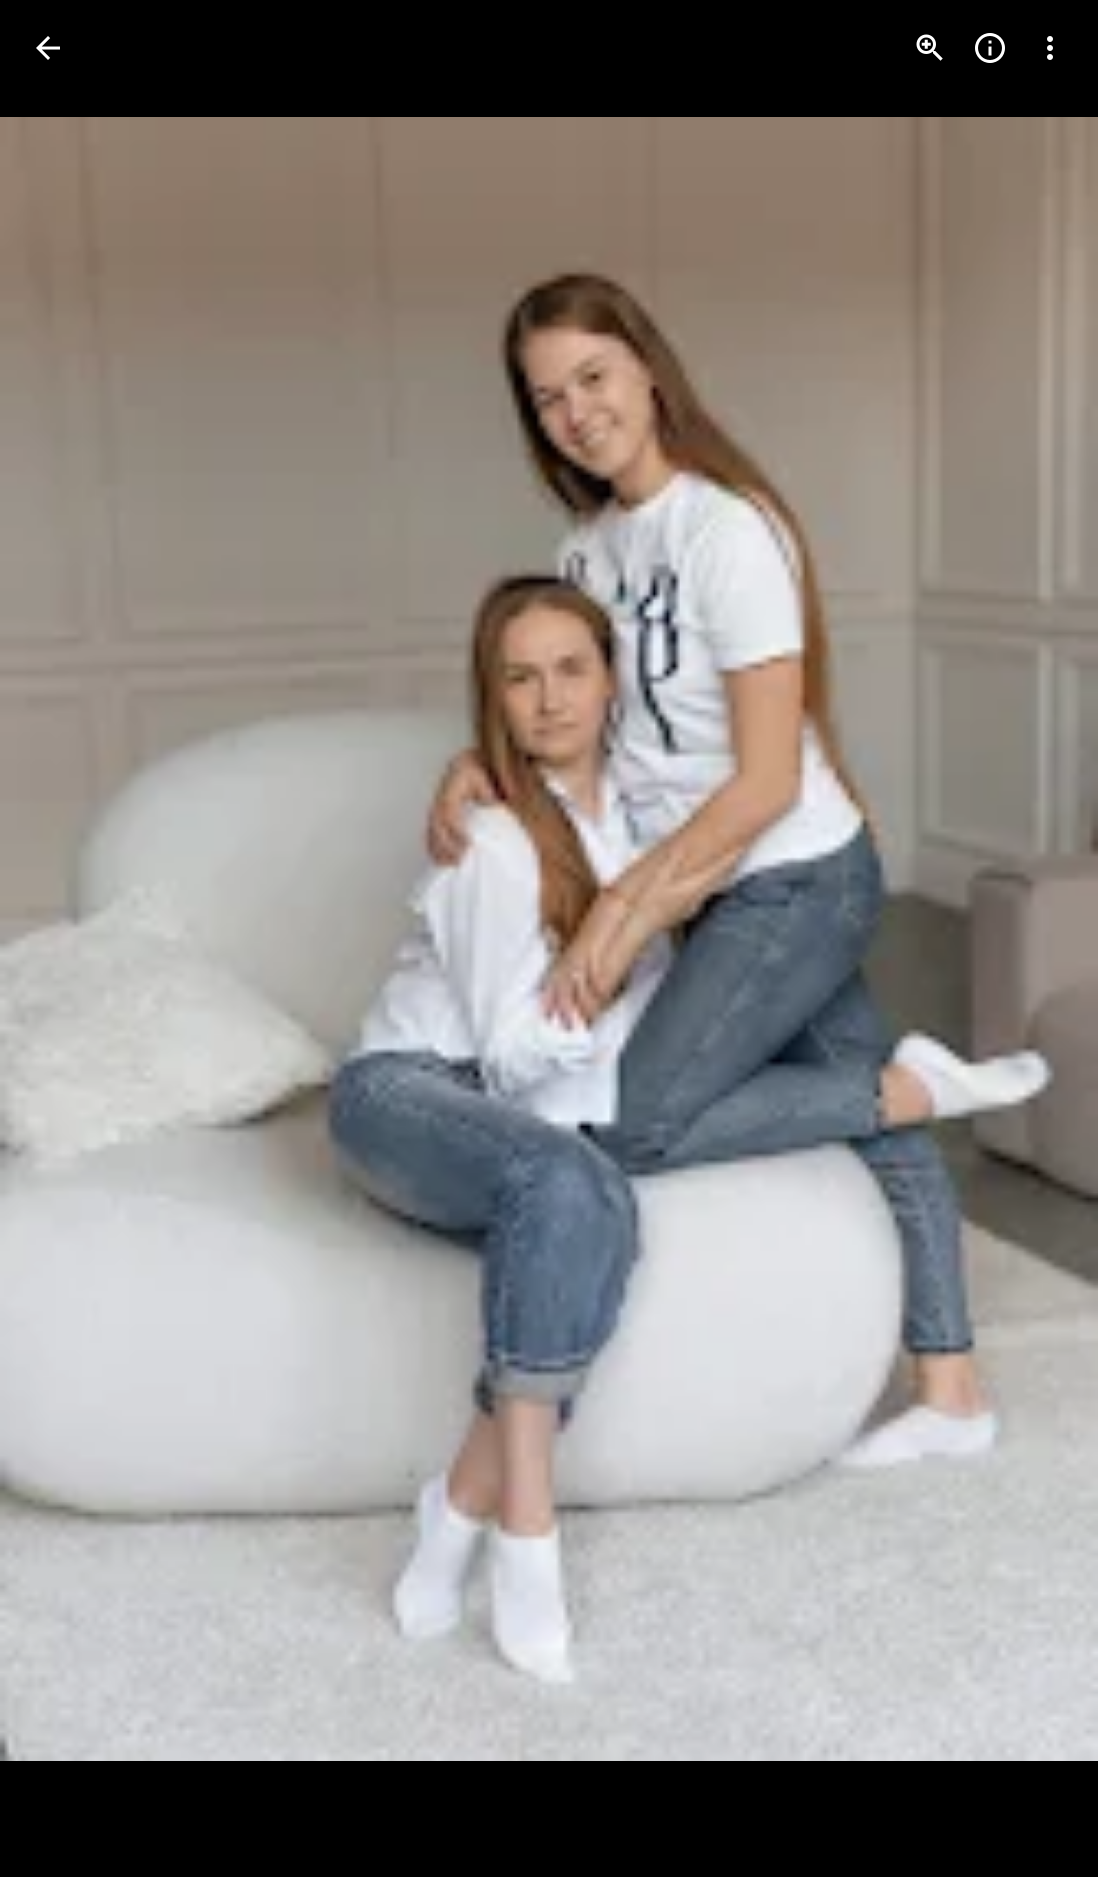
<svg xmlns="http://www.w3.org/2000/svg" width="1098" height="1877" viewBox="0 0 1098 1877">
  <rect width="100%" height="100%" fill="#000000"/>
  <image x="36" y="36" width="24" height="24" href="img1.png"/>
  <image x="916" y="34" width="27" height="27" href="img2.png"/>
  <image x="975" y="33" width="30" height="30" href="img3.png"/>
  <image x="1047" y="36" width="6" height="24" href="img4.png"/>
  <image x="0" y="117" width="1098" height="1644" href="img5.png"/>
</svg>
